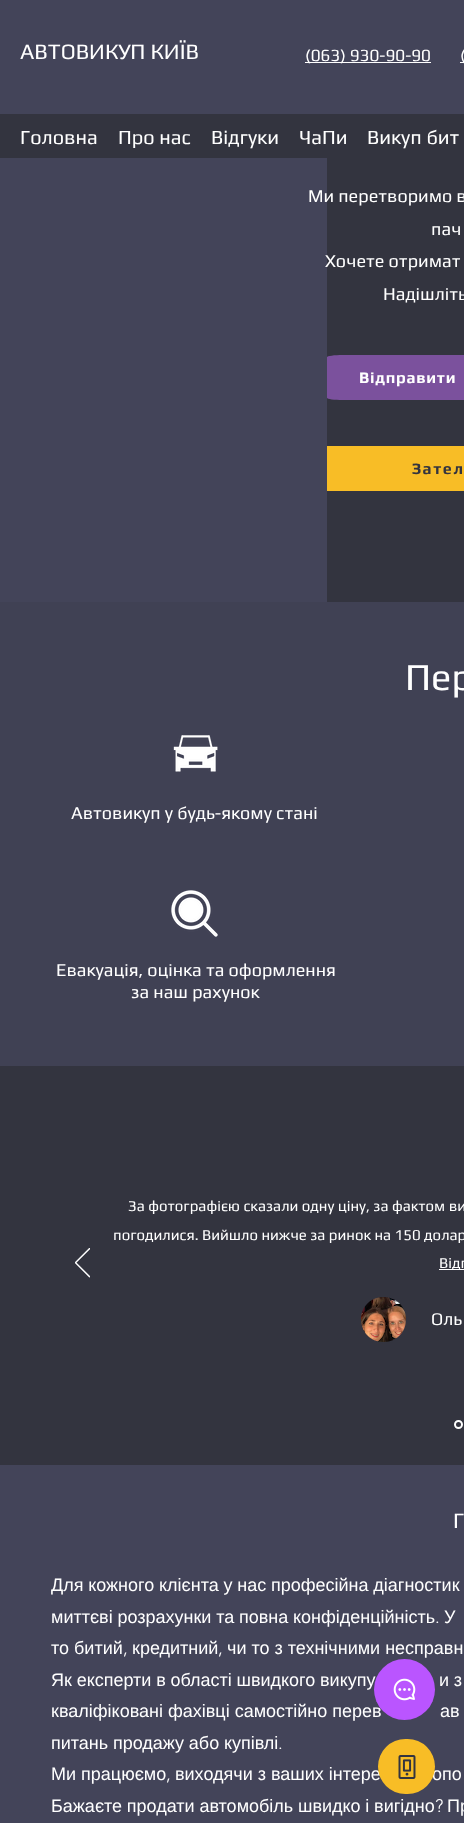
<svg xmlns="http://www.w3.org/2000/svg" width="464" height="1823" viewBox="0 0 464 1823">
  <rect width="100%" height="100%" fill="#33343f"/>
  <rect x="0" y="0" width="464" height="114" fill="#434459"/>
  <text x="20" y="59" font-family="Play" font-size="22" fill="#ffffff">АВТОВИКУП КИЇВ</text>
  <rect x="305" y="62" width="126" height="1" fill="#ffffff"/>
  <text x="305" y="61" font-family="Play" font-size="17" fill="#ffffff">(063) 930-90-90</text>
  <rect x="460" y="62" width="4" height="1" fill="#ffffff"/>
  <text x="460" y="61" font-family="Play" font-size="17" fill="#ffffff">(</text>
  <text x="20" y="144" font-family="Play" font-size="20" fill="#ffffff">Головна</text>
  <text x="118" y="144" font-family="Play" font-size="20" fill="#ffffff">Про нас</text>
  <text x="211" y="144" font-family="Play" font-size="20" fill="#ffffff">Відгуки</text>
  <text x="299" y="144" font-family="Play" font-size="20" fill="#ffffff">ЧаПи</text>
  <text x="367" y="144" font-family="Play" font-size="20" fill="#ffffff">Викуп бит</text>
  <rect x="0" y="158" width="327" height="444" fill="#434459"/>
  <text x="308" y="202" font-family="Play" font-size="18" fill="#ffffff">Ми перетворимо в</text>
  <text x="431" y="235" font-family="Play" font-size="18" fill="#ffffff">пач</text>
  <text x="325" y="267" font-family="Play" font-size="18" fill="#ffffff">Хочете отримат</text>
  <text x="383" y="300" font-family="Play" font-size="18" fill="#ffffff">Надішліть</text>
  <path d="M343 355H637C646 355 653 356 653 357V398C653 399 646 400 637 400H343C334 400 327 399 327 398V357C327 356 334 355 343 355Z" fill="#7b519d"/>
  <text x="359" y="383" font-family="Play" font-size="16" font-weight="bold" letter-spacing="0.75" fill="#ffffff">Відправити</text>
  <rect x="327" y="446" width="137" height="45" fill="#f8bd26"/>
  <text x="412" y="474" font-family="Play" font-size="16" font-weight="bold" letter-spacing="1.5" fill="#33343f">Зател</text>
  <rect x="0" y="602" width="464" height="464" fill="#404154"/>
  <text x="405" y="690" font-family="Play" font-size="38" fill="#ffffff">Пер</text>
  <image x="173" y="735" width="45" height="37" href="img1.png"/>
  <text x="71" y="819" font-family="Play" font-size="18" fill="#ffffff">Автовикуп у будь-якому стані</text>
  <image x="171" y="890" width="47" height="47" href="img2.png"/>
  <text x="56" y="976" font-family="Play" font-size="18" fill="#ffffff">Евакуація, оцінка та оформлення</text>
  <text x="131" y="998" font-family="Play" font-size="18" fill="#ffffff">за наш рахунок</text>
  <image x="75" y="1248" width="15" height="30" href="img3.png"/>
  <text x="128" y="1211" font-family="Play" font-size="15" fill="#ffffff">За фотографією сказали одну ціну, за фактом ви</text>
  <text x="113" y="1240" font-family="Play" font-size="15" fill="#ffffff">погодилися. Вийшло нижче за ринок на 150 долар</text>
  <rect x="439" y="1269" width="25" height="1" fill="#ffffff"/>
  <text x="439" y="1268" font-family="Play" font-size="15" fill="#ffffff">Відг</text>
  <image x="361" y="1297" width="45" height="45" href="img4.png"/>
  <text x="431" y="1325" font-family="Play" font-size="18" fill="#ffffff">Оль</text>
  <circle cx="458.5" cy="1424.5" r="3.5" fill="none" stroke="#ffffff" stroke-width="2"/>
  <rect x="0" y="1465" width="464" height="358" fill="#434459"/>
  <text x="453" y="1528" font-family="Play" font-size="22" fill="#ffffff">Г</text>
  <text x="51" y="1591" word-spacing="-0.25" font-family="Liberation Sans" font-size="18" fill="#ffffff">Для кожного клієнта у нас професійна діагностик</text>
  <text x="51" y="1623" word-spacing="-0.25" font-family="Liberation Sans" font-size="18" fill="#ffffff">миттєві розрахунки та повна конфіденційність</text>
  <text x="435" y="1623" font-family="'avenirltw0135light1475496'" font-size="18" font-weight="300" fill="#ffffff">.</text>
  <text x="444" y="1623" word-spacing="-0.25" font-family="Liberation Sans" font-size="18" fill="#ffffff">У</text>
  <text x="51" y="1654" font-family="Liberation Sans" font-size="18" fill="#ffffff">то битий</text>
  <text x="123" y="1654" font-family="'avenirltw0135light1475496'" font-size="18" font-weight="300" fill="#ffffff">,</text>
  <text x="132" y="1654" font-family="Liberation Sans" font-size="18" fill="#ffffff">кредитний</text>
  <text x="218" y="1654" font-family="'avenirltw0135light1475496'" font-size="18" font-weight="300" fill="#ffffff">,</text>
  <text x="227" y="1654" font-family="Liberation Sans" font-size="18" fill="#ffffff">чи то з технічними несправн</text>
  <text x="51" y="1686" word-spacing="-0.25" font-family="Liberation Sans" font-size="18" fill="#ffffff">Як експерти в області швидкого викупу</text>
  <text x="439" y="1686" word-spacing="-0.25" font-family="Liberation Sans" font-size="18" fill="#ffffff">и з</text>
  <text x="51" y="1717" font-family="Liberation Sans" font-size="18" fill="#ffffff">кваліфіковані фахівці самостійно перев</text>
  <text x="440" y="1717" font-family="Liberation Sans" font-size="18" fill="#ffffff">ав</text>
  <text x="51" y="1749" word-spacing="-0.25" font-family="Liberation Sans" font-size="18" fill="#ffffff">питань продажу або купівлі</text>
  <text x="278" y="1749" font-family="'avenirltw0135light1475496'" font-size="18" font-weight="300" fill="#ffffff">.</text>
  <text x="51" y="1780" font-family="Liberation Sans" font-size="18" fill="#ffffff">Ми працюємо</text>
  <text x="166" y="1780" font-family="'avenirltw0135light1475496'" font-size="18" font-weight="300" fill="#ffffff">,</text>
  <text x="175" y="1780" font-family="Liberation Sans" font-size="18" fill="#ffffff">виходячи з ваших інтере</text>
  <text x="432" y="1780" font-family="Liberation Sans" font-size="18" fill="#ffffff">опо</text>
  <text x="51" y="1812" word-spacing="-0.25" font-family="Liberation Sans" font-size="18" fill="#ffffff">Бажаєте продати автомобіль швидко і вигідно</text>
  <text x="435" y="1812" font-family="'avenirltw0135light1475496'" font-size="18" font-weight="300" fill="#ffffff">?</text>
  <text x="447" y="1812" word-spacing="-0.25" font-family="Liberation Sans" font-size="18" fill="#ffffff">Пр</text>
  <circle cx="404.5" cy="1689.5" r="30.5" fill="#ba55ff"/>
  <image x="393" y="1678" width="23" height="23" href="img5.png"/>
  <rect x="378" y="1739" width="57" height="55" rx="27.5" fill="#f8bd26"/>
  <image x="398" y="1755" width="18" height="24" href="img6.png"/>
</svg>
